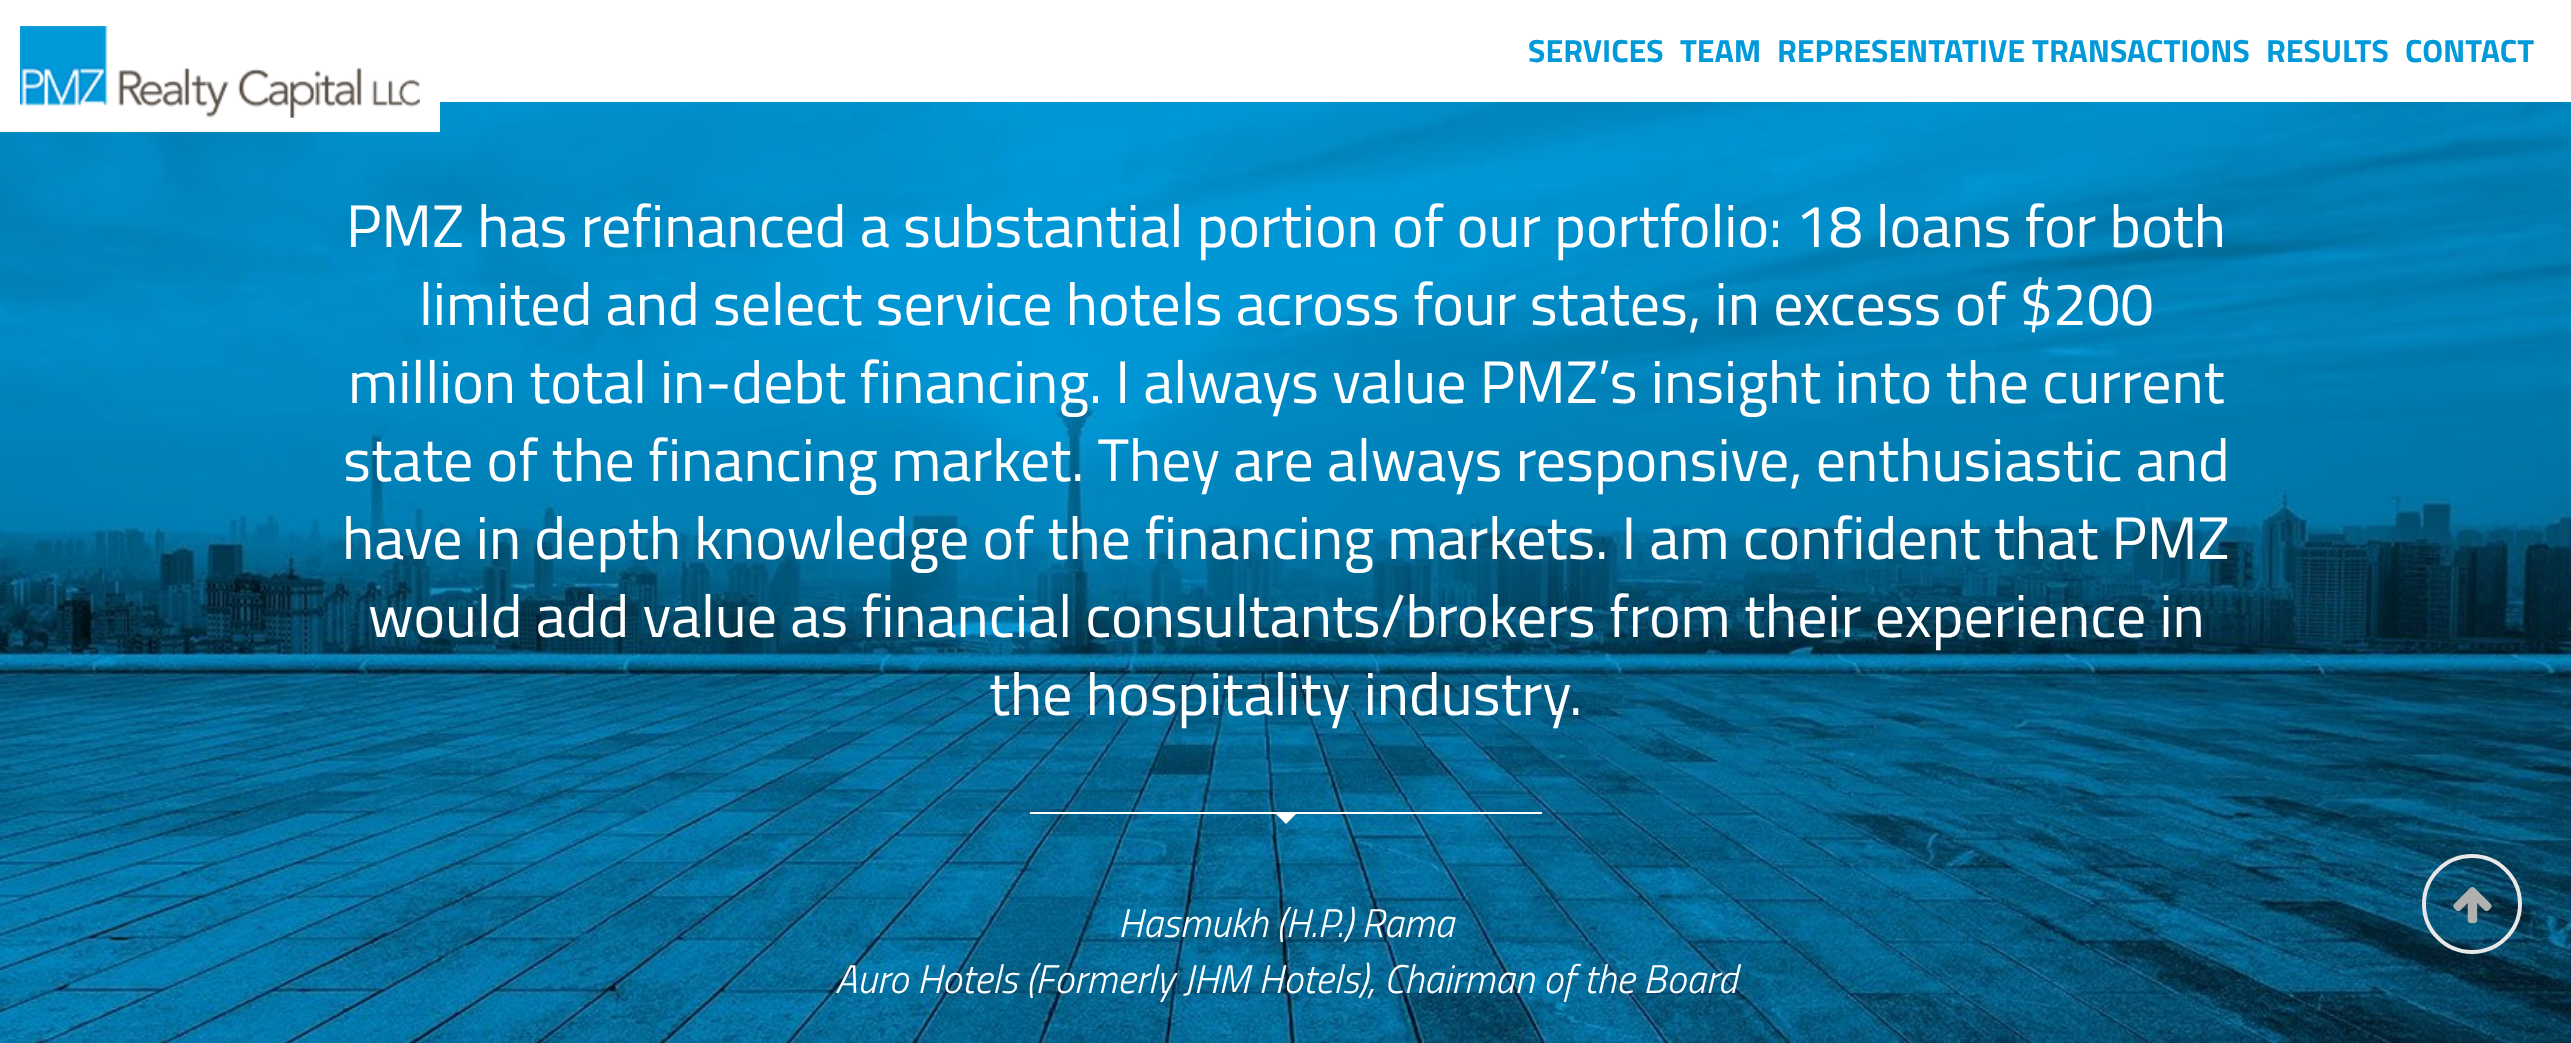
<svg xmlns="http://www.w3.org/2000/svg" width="2571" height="1043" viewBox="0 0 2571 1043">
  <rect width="100%" height="100%" fill="#ffffff"/>
  <image x="0" y="102" width="2571" height="941" href="img2.png"/>
  <rect x="0" y="102" width="440" height="30" fill="#ffffff"/>
  <image x="20" y="26" width="400" height="92" href="img1.png"/>
  <text x="1528" y="62" font-family="Titillium Web" font-size="32" font-weight="bold" fill="#0099d9">SERVICES</text>
  <text x="1680" y="62" font-family="Titillium Web" font-size="32" font-weight="bold" fill="#0099d9">TEAM</text>
  <text x="1777" y="62" font-family="Titillium Web" font-size="32" font-weight="bold" fill="#0099d9">REPRESENTATIVE TRANSACTIONS</text>
  <text x="2266" y="62" font-family="Titillium Web" font-size="32" font-weight="bold" fill="#0099d9">RESULTS</text>
  <text x="2405" y="62" font-family="Titillium Web" font-size="32" font-weight="bold" fill="#0099d9">CONTACT</text>
  <text x="346" y="247" font-family="Titillium Web" font-size="60" fill="#ffffff">PMZ has refinanced a substantial portion of our portfolio: 18 loans for both</text>
  <text x="419" y="325" font-family="Titillium Web" font-size="60" fill="#ffffff">limited and select service hotels across four states, in excess of $200</text>
  <text x="348" y="403" font-family="Titillium Web" font-size="60" fill="#ffffff">million total in-debt financing. I always value PMZ’s insight into the current</text>
  <text x="343" y="481" font-family="Titillium Web" font-size="60" fill="#ffffff">state of the financing market. They are always responsive, enthusiastic and</text>
  <text x="342" y="559" font-family="Titillium Web" font-size="60" fill="#ffffff">have in depth knowledge of the financing markets. I am confident that PMZ</text>
  <text x="368" y="637" font-family="Titillium Web" font-size="60" fill="#ffffff">would add value as financial consultants/brokers from their experience in</text>
  <text x="989" y="715" font-family="Titillium Web" font-size="60" fill="#ffffff">the hospitality industry.</text>
  <rect x="1030" y="812" width="512" height="2" fill="#ffffff"/>
  <path d="M1276 814H1296L1286 824Z" fill="#ffffff"/>
  <text x="1118" y="937" font-family="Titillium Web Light" font-size="40" font-weight="300" font-style="italic" fill="#ffffff">Hasmukh (H.P.) Rama</text>
  <text x="835" y="993" font-family="Titillium Web Light" font-size="40" font-weight="300" font-style="italic" fill="#ffffff">Auro Hotels (Formerly JHM Hotels), Chairman of the Board</text>
  <circle cx="2472" cy="904" r="48" fill="none" stroke="#e8e8e8" stroke-width="4"/>
  <image x="2453" y="887" width="39" height="37" href="img3.png"/>
</svg>
